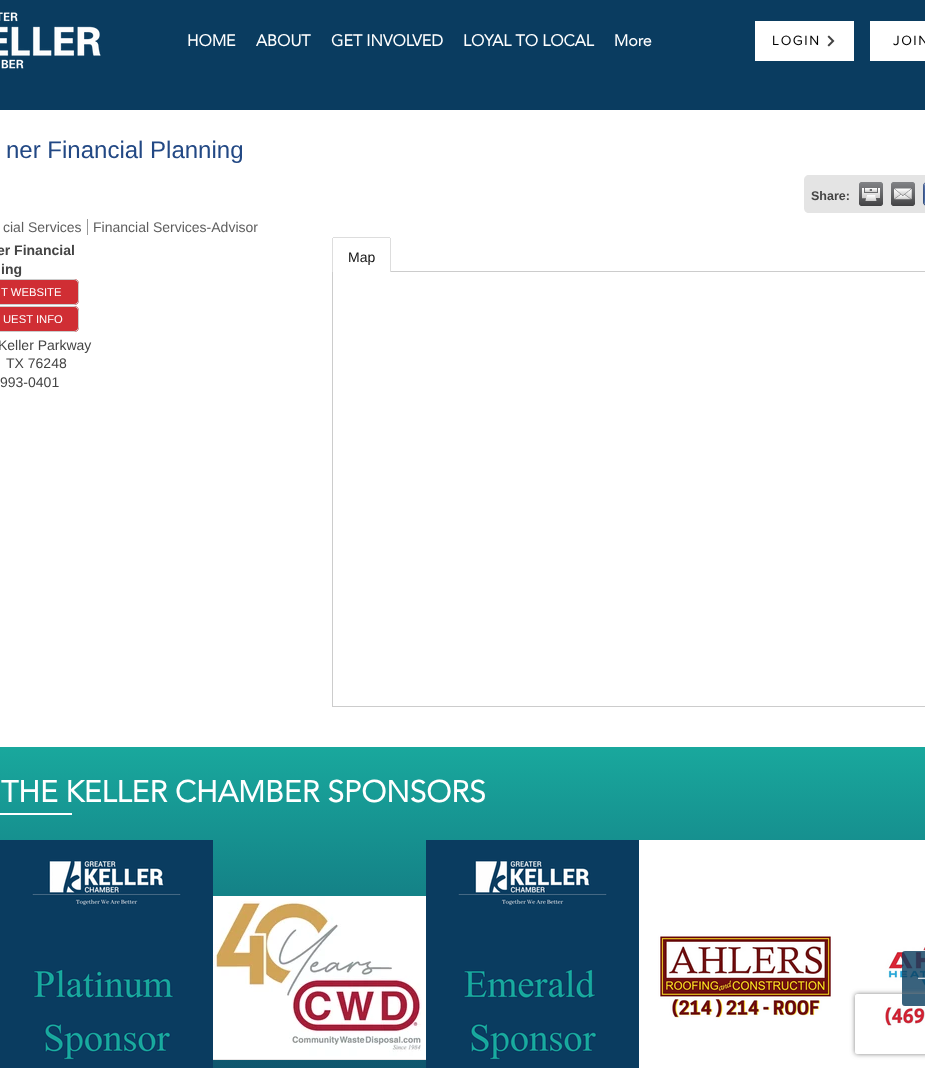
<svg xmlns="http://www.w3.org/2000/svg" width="925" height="1068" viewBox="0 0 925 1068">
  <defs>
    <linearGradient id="g1" gradientUnits="userSpaceOnUse" x1="490" y1="747" x2="490" y2="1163"><stop offset="0" stop-color="#19a89d"/><stop offset="1" stop-color="#0b3d5f"/></linearGradient>
    <clipPath id="clip1"><path d="M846 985H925V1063H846ZM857 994H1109C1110 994 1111 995 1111 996V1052C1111 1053 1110 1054 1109 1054H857C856 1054 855 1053 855 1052V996C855 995 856 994 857 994Z" clip-rule="evenodd"/></clipPath>
    <filter id="blur1" x="-50%" y="-200%" width="200%" height="500%"><feGaussianBlur stdDeviation="2.5"/></filter>
  </defs>
  <rect width="100%" height="100%" fill="#ffffff"/>
  <rect x="0" y="0" width="925" height="110" fill="#0a3c60"/>
  <image x="0" y="12" width="101" height="57" href="img1.png"/>
  <text x="187" y="46" font-family="'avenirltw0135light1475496'" font-size="16" font-weight="bold" fill="#ffffff">HOME</text>
  <text x="256" y="46" font-family="'avenirltw0135light1475496'" font-size="16" font-weight="bold" fill="#ffffff">ABOUT</text>
  <text x="331" y="46" font-family="'avenirltw0135light1475496'" font-size="16" font-weight="bold" fill="#ffffff">GET INVOLVED</text>
  <text x="463" y="46" font-family="'avenirltw0135light1475496'" font-size="16" font-weight="bold" fill="#ffffff">LOYAL TO LOCAL</text>
  <text x="614" y="46" font-family="'avenirltw0135light1475496'" font-size="16" font-weight="bold" fill="#ffffff">More</text>
  <rect x="755" y="21" width="99" height="40" fill="#ffffff"/>
  <text x="772" y="45" font-family="'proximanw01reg'" font-size="14" letter-spacing="1.5" fill="#000000">LOGIN</text>
  <image x="827" y="35" width="8" height="12" href="img2.png"/>
  <rect x="870" y="21" width="55" height="40" fill="#ffffff"/>
  <text x="893" y="45" font-family="'proximanw01reg'" font-size="14" letter-spacing="1.5" fill="#000000">JOIN</text>
  <text x="6" y="158" font-family="Liberation Sans" font-size="24" fill="#224884">ner Financial Planning</text>
  <path d="M809 175H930V213H809C806 213 804 211 804 208V180C804 177 806 175 809 175Z" fill="#e4e4e4"/>
  <text x="811" y="200" font-family="Liberation Sans" font-size="12.5" font-weight="bold" fill="#444444">Share:</text>
  <image x="859" y="182" width="24" height="24" href="img3.png"/>
  <image x="891" y="182" width="24" height="24" href="img4.png"/>
  <image x="923" y="182" width="2" height="24" href="img5.png"/>
  <text x="3" y="232" font-family="Liberation Sans" font-size="14" fill="#5e5e5e">cial Services</text>
  <text x="93" y="232" font-family="Liberation Sans" font-size="14" fill="#5e5e5e">Financial Services-Advisor</text>
  <rect x="87" y="219" width="1" height="16" fill="#999999"/>
  <text x="-3" y="255" font-family="Liberation Sans" font-size="14" font-weight="bold" fill="#444444">er Financial</text>
  <text x="1" y="274" font-family="Liberation Sans" font-size="14" font-weight="bold" fill="#444444">ing</text>
  <path d="M0 279H74C77 279 79 281 79 284V300C79 303 77 305 74 305H0Z" fill="#d02e34"/>
  <rect x="-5.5" y="279.5" width="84" height="25" rx="4.5" fill="none" stroke="#cccccc"/>
  <text x="1" y="296" font-family="Liberation Sans" font-size="11.25" fill="#ffffff">T WEBSITE</text>
  <path d="M0 306H74C77 306 79 308 79 311V327C79 330 77 332 74 332H0Z" fill="#d02e34"/>
  <rect x="-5.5" y="306.5" width="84" height="25" rx="4.5" fill="none" stroke="#cccccc"/>
  <text x="3" y="323" font-family="Liberation Sans" font-size="11.25" fill="#ffffff">UEST INFO</text>
  <text x="-2" y="350" font-family="Liberation Sans" font-size="14" fill="#444444">Keller Parkway</text>
  <text x="6" y="368" font-family="Liberation Sans" font-size="14" fill="#444444">TX 76248</text>
  <text x="0" y="387" font-family="Liberation Sans" font-size="14" fill="#444444">993-0401</text>
  <rect x="332.5" y="271.5" width="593" height="435" fill="none" stroke="#cccccc"/>
  <path d="M334 238H389C389.5 238 390 238.5 390 239V272H333V239C333 238.5 333.5 238 334 238Z" fill="#ffffff"/>
  <rect x="333" y="237" width="57" height="1" fill="#dddddd"/>
  <rect x="390" y="238" width="1" height="34" fill="#dddddd"/>
  <rect x="332" y="238" width="1" height="34" fill="#dddddd"/>
  <text x="348" y="262" font-family="Liberation Sans" font-size="14" fill="#111111">Map</text>
  <rect x="0" y="747" width="925" height="321" fill="url(#g1)"/>
  <text x="1" y="802" font-family="'avenirltw0135light1475496'" font-size="30" font-weight="bold" fill="#ffffff">THE KELLER CHAMBER SPONSORS</text>
  <rect x="0" y="813" width="72" height="2" fill="#ffffff"/>
  <image x="0" y="840" width="213" height="228" href="img6.png"/>
  <rect x="213" y="1059" width="213" height="1" fill="#e8e6e6"/>
  <image x="213" y="896" width="213" height="163" href="img7.png"/>
  <image x="426" y="840" width="213" height="228" href="img8.png"/>
  <image x="639" y="840" width="213" height="228" href="img9.png"/>
  <image x="852" y="840" width="73" height="228" href="img10.png"/>
  <rect x="902" y="951" width="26" height="55" rx="3" fill="#0b3d5f" fill-opacity="0.81"/>
  <image x="918" y="977" width="7" height="2" href="img11.png"/>
  <g clip-path="url(#clip1)">
    <rect x="855" y="994" width="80" height="60" rx="2" fill="#808080" filter="url(#blur1)"/>
  </g>
</svg>
